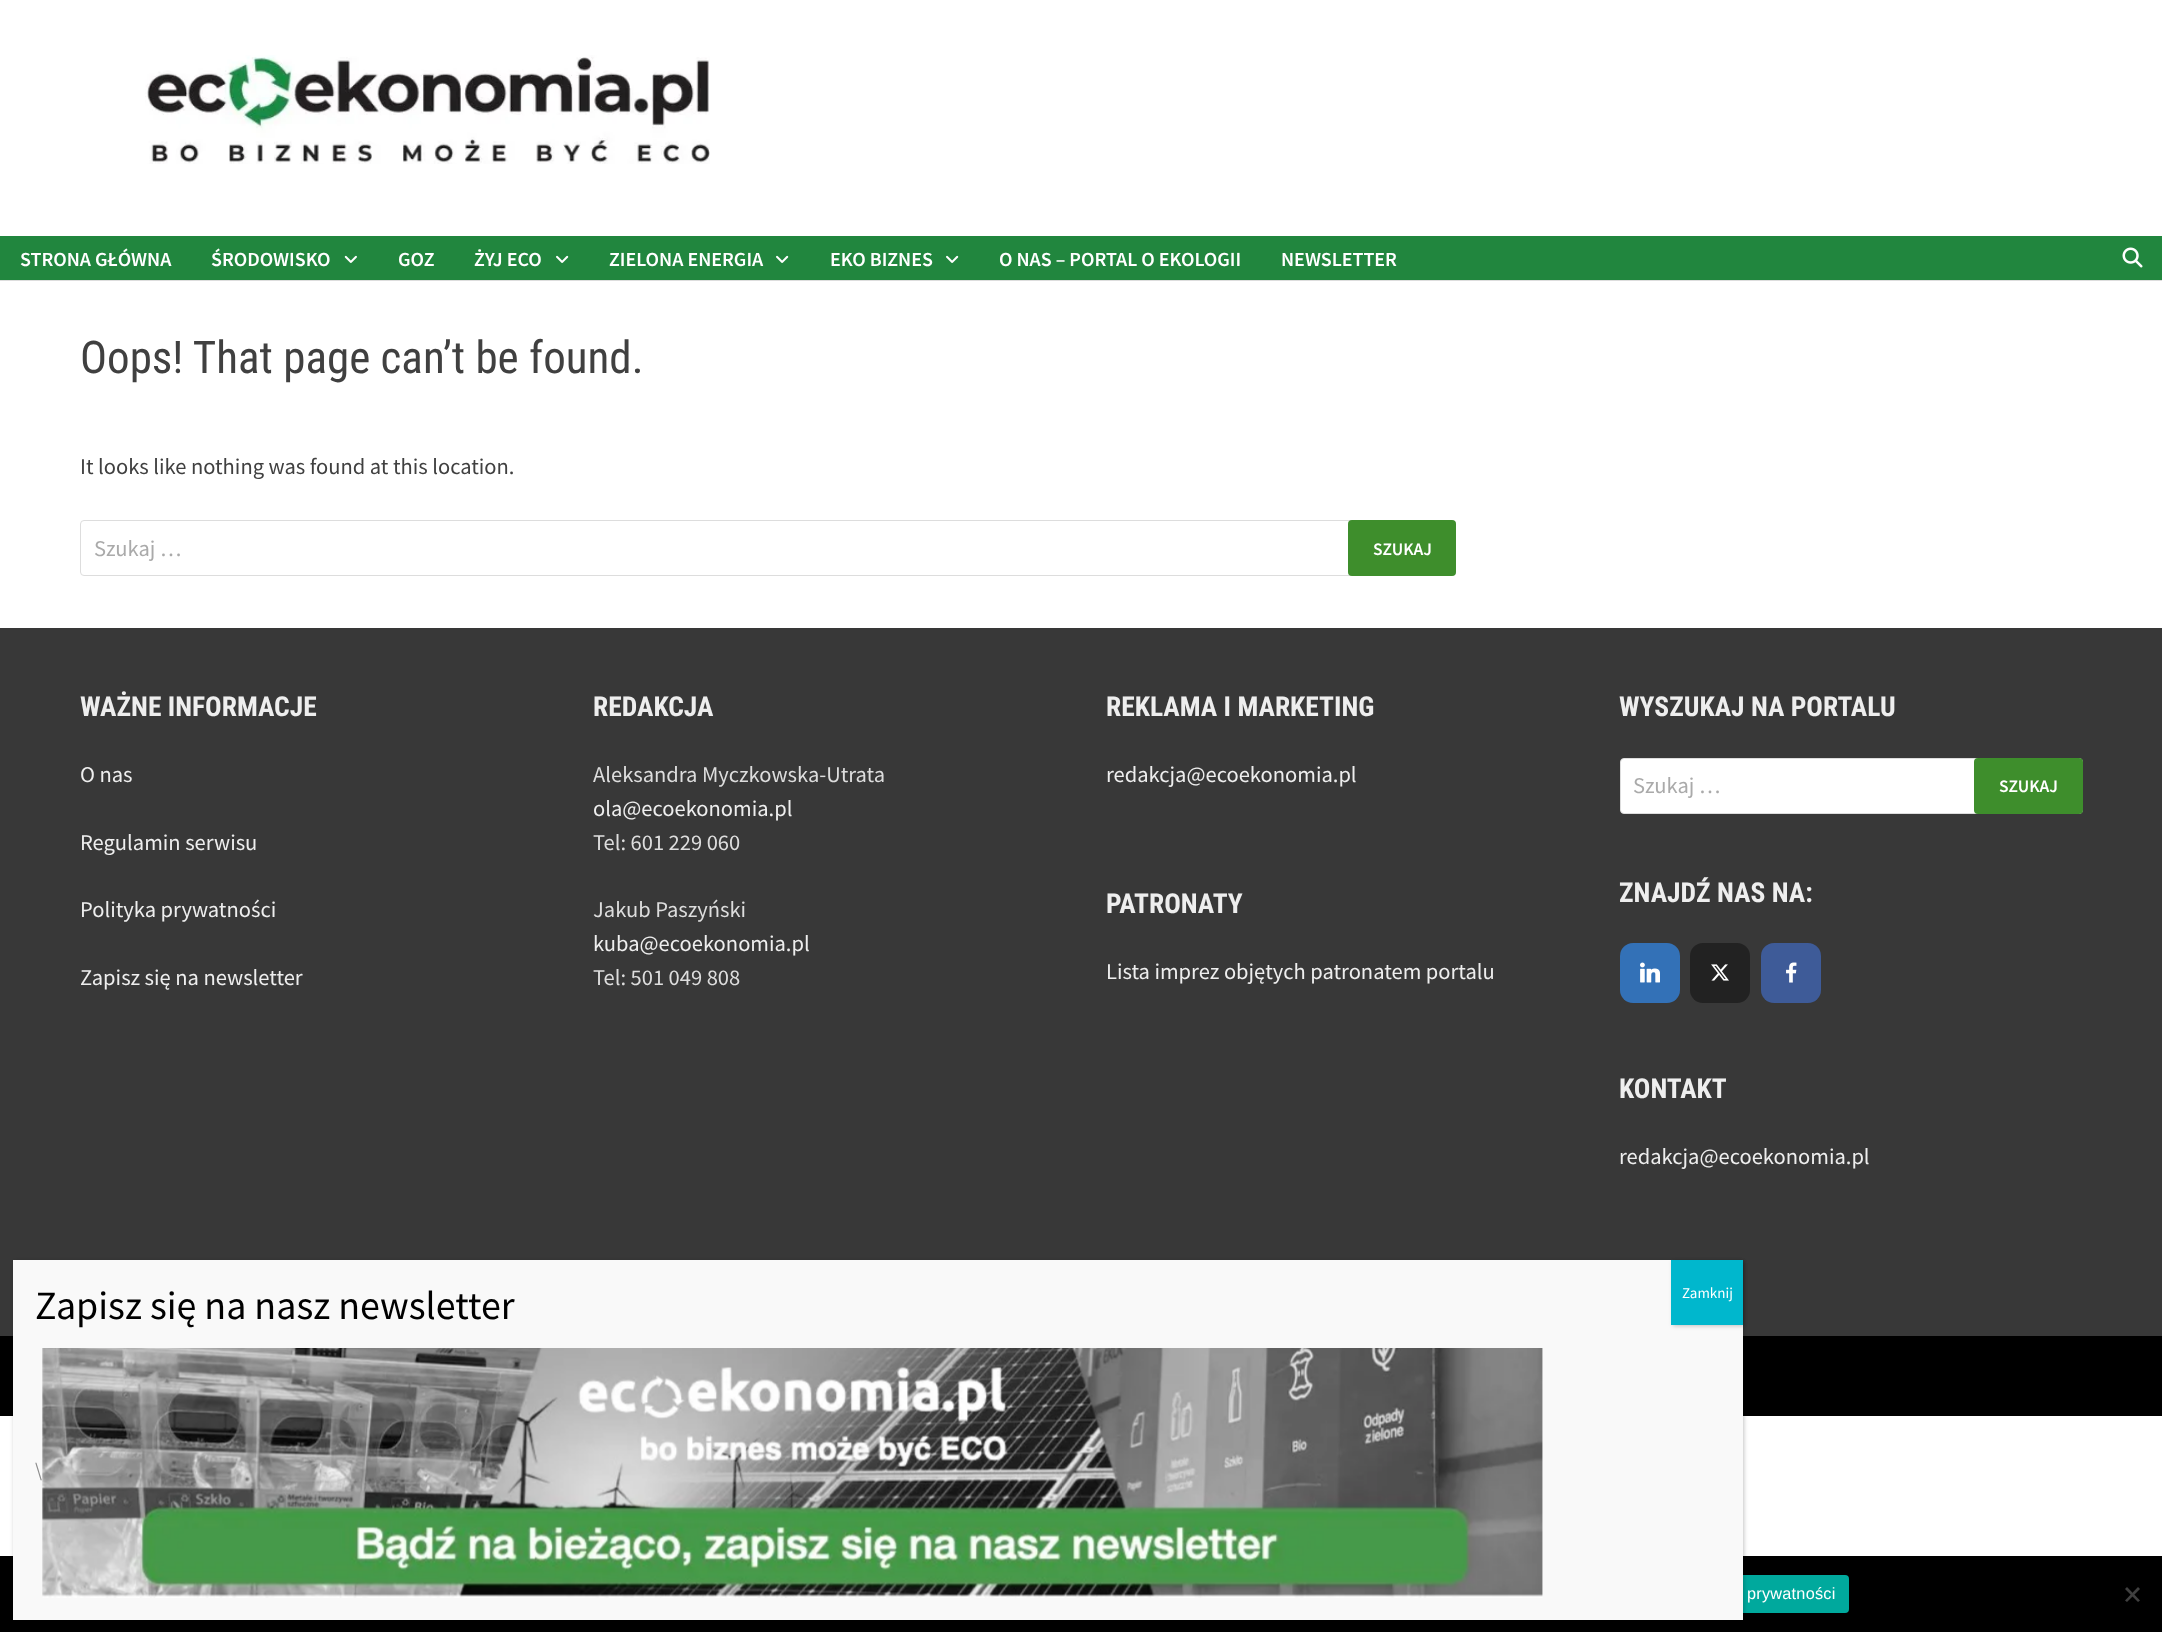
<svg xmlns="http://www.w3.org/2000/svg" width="2162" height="1632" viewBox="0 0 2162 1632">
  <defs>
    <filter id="blur1" x="-50%" y="-200%" width="200%" height="500%"><feGaussianBlur stdDeviation="2"/></filter>
  </defs>
  <rect width="100%" height="100%" fill="#ffffff"/>
  <rect x="0" y="280" width="2162" height="1" fill="#dddddd"/>
  <image x="145" y="55" width="565" height="109" href="img1.png"/>
  <rect x="0" y="236" width="2162" height="44" fill="#21863e"/>
  <text x="20" y="266" font-family="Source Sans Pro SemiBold" font-size="20" font-weight="600" fill="#ffffff">STRONA GŁÓWNA</text>
  <text x="211" y="266" font-family="Source Sans Pro SemiBold" font-size="20" font-weight="600" fill="#ffffff">ŚRODOWISKO</text>
  <image x="344" y="255" width="13" height="8" href="img2.png"/>
  <text x="398" y="266" font-family="Source Sans Pro SemiBold" font-size="20" font-weight="600" fill="#ffffff">GOZ</text>
  <text x="474" y="266" font-family="Source Sans Pro SemiBold" font-size="20" font-weight="600" fill="#ffffff">ŻYJ ECO</text>
  <image x="556" y="255" width="13" height="8" href="img3.png"/>
  <text x="609" y="266" font-family="Source Sans Pro SemiBold" font-size="20" font-weight="600" fill="#ffffff">ZIELONA ENERGIA</text>
  <image x="776" y="255" width="13" height="8" href="img3.png"/>
  <text x="830" y="266" font-family="Source Sans Pro SemiBold" font-size="20" font-weight="600" fill="#ffffff">EKO BIZNES</text>
  <image x="946" y="255" width="13" height="8" href="img3.png"/>
  <text x="999" y="266" font-family="Source Sans Pro SemiBold" font-size="20" font-weight="600" fill="#ffffff">O NAS – PORTAL O EKOLOGII</text>
  <text x="1281" y="266" font-family="Source Sans Pro SemiBold" font-size="20" font-weight="600" fill="#ffffff">NEWSLETTER</text>
  <image x="2122" y="247" width="21" height="21" href="img4.png"/>
  <text x="80" y="373" font-family="Roboto Condensed" font-size="45" fill="#404040">Oops! That page can’t be found.</text>
  <text x="80" y="474" font-family="Source Sans Pro" font-size="22.5" fill="#404040">It looks like nothing was found at this location.</text>
  <rect x="80.5" y="520.5" width="1375" height="55" rx="3.5" fill="none" stroke="#dddddd"/>
  <text x="94" y="556" font-family="Source Sans Pro" font-size="22.5" fill="#aaaaaa">Szukaj …</text>
  <rect x="1348" y="520" width="108" height="56" rx="4" fill="#3e8e2c"/>
  <text x="1373" y="555" font-family="Source Sans Pro SemiBold" font-size="17.5" font-weight="600" fill="#ffffff">SZUKAJ</text>
  <rect x="0" y="628" width="2162" height="708" fill="#383838"/>
  <text x="80" y="716" font-family="Roboto Condensed" font-size="27.5" font-weight="bold" fill="#eeeeee">WAŻNE INFORMACJE</text>
  <text x="80" y="782" font-family="Source Sans Pro" font-size="22.5" fill="#eeeeee">O nas</text>
  <text x="80" y="850" font-family="Source Sans Pro" font-size="22.5" fill="#eeeeee">Regulamin serwisu</text>
  <text x="80" y="917" font-family="Source Sans Pro" font-size="22.5" fill="#eeeeee">Polityka prywatności</text>
  <text x="80" y="985" font-family="Source Sans Pro" font-size="22.5" fill="#eeeeee">Zapisz się na newsletter</text>
  <text x="593" y="716" font-family="Roboto Condensed" font-size="27.5" font-weight="bold" fill="#eeeeee">REDAKCJA</text>
  <text x="593" y="782" font-family="Source Sans Pro" font-size="22.5" fill="#dddddd">Aleksandra Myczkowska-Utrata</text>
  <text x="593" y="816" font-family="Source Sans Pro" font-size="22.5" fill="#eeeeee">ola@ecoekonomia.pl</text>
  <text x="593" y="850" font-family="Source Sans Pro" font-size="22.5" fill="#dddddd">Tel: 601 229 060</text>
  <text x="593" y="917" font-family="Source Sans Pro" font-size="22.5" fill="#dddddd">Jakub Paszyński</text>
  <text x="593" y="951" font-family="Source Sans Pro" font-size="22.5" fill="#eeeeee">kuba@ecoekonomia.pl</text>
  <text x="593" y="985" font-family="Source Sans Pro" font-size="22.5" fill="#dddddd">Tel: 501 049 808</text>
  <text x="1106" y="716" font-family="Roboto Condensed" font-size="27.5" font-weight="bold" fill="#eeeeee">REKLAMA I MARKETING</text>
  <text x="1106" y="782" font-family="Source Sans Pro" font-size="22.5" fill="#eeeeee">redakcja@ecoekonomia.pl</text>
  <text x="1106" y="913" font-family="Roboto Condensed" font-size="27.5" font-weight="bold" fill="#eeeeee">PATRONATY</text>
  <text x="1106" y="979" font-family="Source Sans Pro" font-size="22.5" fill="#eeeeee">Lista imprez objętych patronatem portalu</text>
  <text x="1619" y="716" font-family="Roboto Condensed" font-size="27.5" font-weight="bold" fill="#eeeeee">WYSZUKAJ NA PORTALU</text>
  <rect x="1620.5" y="758.5" width="462" height="55" rx="3.5" fill="#ffffff" stroke="#dddddd"/>
  <text x="1633" y="793" font-family="Source Sans Pro" font-size="22.5" fill="#aaaaaa">Szukaj …</text>
  <rect x="1974" y="758" width="109" height="56" rx="4" fill="#3e8e2c"/>
  <text x="1999" y="792" font-family="Source Sans Pro SemiBold" font-size="17.5" font-weight="600" fill="#ffffff">SZUKAJ</text>
  <text x="1619" y="902" font-family="Roboto Condensed" font-size="27.5" font-weight="bold" fill="#eeeeee">ZNAJDŹ NAS NA:</text>
  <rect x="1620" y="943" width="60" height="60" rx="13" fill="#3371b7"/>
  <image x="1640" y="962" width="20" height="21" href="img5.png"/>
  <rect x="1690" y="943" width="60" height="60" rx="13" fill="#222222"/>
  <image x="1711" y="964" width="18" height="17" href="img6.png"/>
  <rect x="1761" y="943" width="60" height="60" rx="13" fill="#3e5b98"/>
  <image x="1786" y="962" width="11" height="21" href="img7.png"/>
  <text x="1619" y="1098" font-family="Roboto Condensed" font-size="27.5" font-weight="bold" fill="#eeeeee">KONTAKT</text>
  <text x="1619" y="1164" font-family="Source Sans Pro" font-size="22.5" fill="#eeeeee">redakcja@ecoekonomia.pl</text>
  <rect x="0" y="1336" width="2162" height="80" fill="#000000"/>
  <rect x="0" y="1556" width="2162" height="76" fill="#000000"/>
  <rect x="1670" y="1575" width="179" height="38" rx="4" fill="#00a99d"/>
  <rect x="14" y="1261" width="1730" height="360" fill="#020202" fill-opacity="0.23" filter="url(#blur1)"/>
  <rect x="13" y="1260" width="1730" height="360" fill="#f9f9f9"/>
  <text x="35" y="1319" font-family="Source Sans Pro" font-size="40" fill="#000000">Zapisz się na nasz newsletter</text>
  <rect x="1673" y="1261" width="71" height="65" fill="#020202" fill-opacity="0.23" filter="url(#blur1)"/>
  <rect x="1671" y="1260" width="72" height="65" fill="#00b7cd"/>
  <text x="1682" y="1298" font-family="Source Sans Pro" font-size="15" fill="#ffffff">Zamknij</text>
  <text x="35" y="1477" font-family="Source Sans Pro" font-size="20" fill="#8c8c8c">\</text>
  <image x="42" y="1348" width="1501" height="250" href="img8.png"/>
  <text x="1747" y="1599" font-family="Liberation Sans" font-size="16.25" letter-spacing="0.25" fill="#ffffff">prywatności</text>
  <path d="M2138 1587L2140 1589L2127 1602L2125 1600.5Z" fill="#404040"/>
  <path d="M2125 1589L2127 1587L2140 1600.5L2138 1602Z" fill="#404040"/>
</svg>
